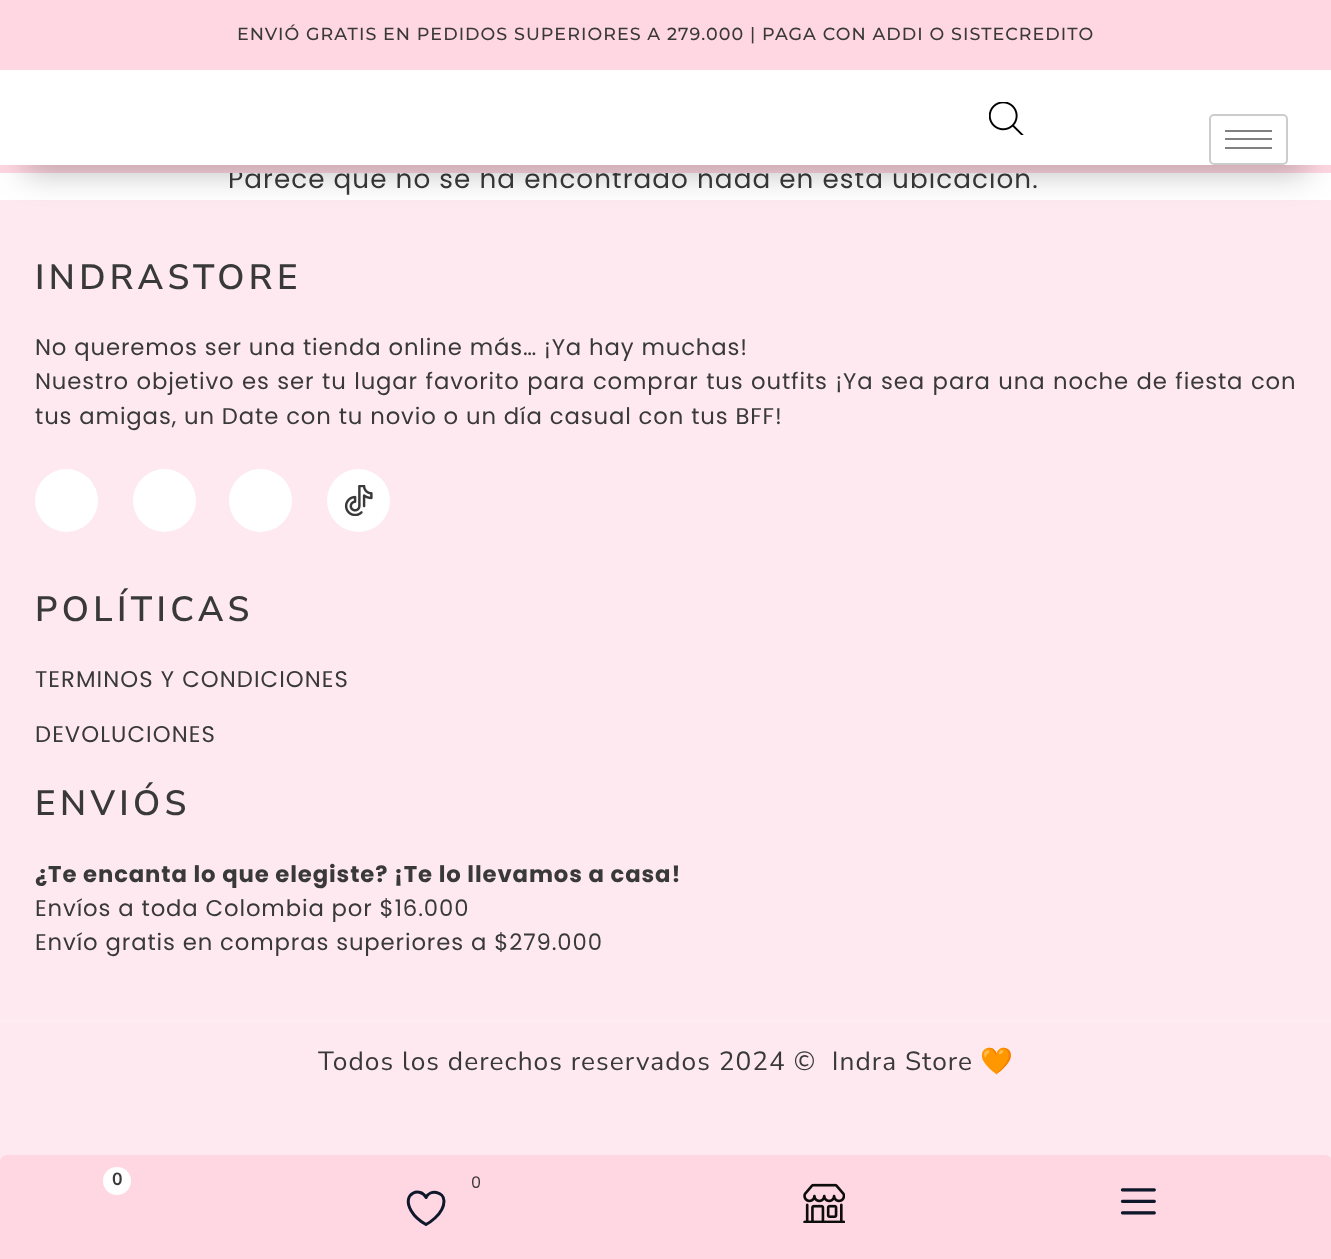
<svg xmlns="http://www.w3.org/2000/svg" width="1331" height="1259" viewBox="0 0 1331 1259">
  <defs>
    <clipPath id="clip1"><path d="M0 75H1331V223H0ZM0 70H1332V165H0Z" clip-rule="evenodd"/></clipPath>
    <filter id="blur1" x="-50%" y="-200%" width="200%" height="500%"><feGaussianBlur stdDeviation="16.5"/></filter>
  </defs>
  <rect width="100%" height="100%" fill="#ffffff"/>
  <rect x="0" y="0" width="1331" height="70" fill="#ffd7e2"/>
  <text x="237" y="40" font-family="Montserrat" font-size="17.5" font-weight="500" letter-spacing="1.05" fill="#393939">ENVIÓ GRATIS EN PEDIDOS SUPERIORES A 279.000 | PAGA CON ADDI O SISTECREDITO</text>
  <text x="228" y="188" font-family="Poppins" font-size="26.25" letter-spacing="1.05" fill="#393939">Parece que no se ha encontrado nada en esta ubicación.</text>
  <rect x="0" y="165" width="1331" height="8" fill="#ffd7e2"/>
  <rect x="0" y="200" width="1331" height="820" fill="#fde9ef"/>
  <g clip-path="url(#clip1)">
    <rect x="25" y="126" width="1282" height="46" fill="#000000" fill-opacity="0.27" filter="url(#blur1)"/>
  </g>
  <image x="989" y="102" width="35" height="33" href="img1.png"/>
  <rect x="1210" y="115" width="77" height="49" rx="4" fill="none" stroke="#000000" stroke-opacity="0.2" stroke-width="2"/>
  <rect x="1225" y="130" width="47" height="2" fill="#808080"/>
  <rect x="1225" y="138" width="47" height="2" fill="#808080"/>
  <rect x="1225" y="147" width="47" height="2" fill="#808080"/>
  <rect x="0" y="1022" width="1331" height="140" fill="#fde9ef"/>
  <path d="M7 1155H1325C1329 1155 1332 1158 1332 1162V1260H0V1162C0 1158 3 1155 7 1155Z" fill="#ffd7e2"/>
  <circle cx="117" cy="1181" r="14" fill="#ffffff"/>
  <text x="112" y="1185" font-family="Nunito" font-size="17.5" font-weight="bold" letter-spacing="1.05" fill="#393939">0</text>
  <text x="471" y="1188" font-family="Poppins" font-size="16" letter-spacing="0.88" fill="#393939">0</text>
  <path d="M444 1201C444 1191.5 430 1189 426 1197.5C421 1186.5 401 1193 411 1210.5C414.5 1216.5 420.5 1221.5 426 1224.5C426 1224.5 444 1215 444 1201Z" fill="none" stroke="#0f172a" stroke-width="3" stroke-linecap="round" stroke-linejoin="round"/>
  <image x="803" y="1183" width="42" height="40" href="img2.png"/>
  <image x="1120" y="1188" width="36" height="27" href="img3.png"/>
  <text x="35" y="289" font-family="Nunito Sans" font-size="35" font-weight="600" letter-spacing="4.4" fill="#393939">INDRASTORE</text>
  <text x="35" y="355" font-family="Poppins" font-size="22.75" letter-spacing="0.88" fill="#393939">No queremos ser una tienda online más… ¡Ya hay muchas!</text>
  <text x="35" y="389" word-spacing="0.6" font-family="Poppins" font-size="22.75" letter-spacing="0.88" fill="#393939">Nuestro objetivo es ser tu lugar favorito para comprar tus outfits ¡Ya sea para una noche de fiesta con</text>
  <text x="35" y="424" font-family="Poppins" font-size="22.75" letter-spacing="0.88" fill="#393939">tus amigas, un Date con tu novio o un día casual con tus BFF!</text>
  <circle cx="66.5" cy="500.5" r="31.5" fill="#ffffff"/>
  <circle cx="164.5" cy="500.5" r="31.5" fill="#ffffff"/>
  <circle cx="260.5" cy="500.5" r="31.5" fill="#ffffff"/>
  <circle cx="358.5" cy="500.5" r="31.5" fill="#ffffff"/>
  <image x="344" y="485" width="29" height="31" href="img4.png"/>
  <text x="35" y="621" font-family="Nunito Sans" font-size="35" font-weight="600" letter-spacing="4.4" fill="#393939">POLÍTICAS</text>
  <text x="35" y="687" font-family="Poppins" font-size="22.75" letter-spacing="1.05" fill="#393939">TERMINOS Y CONDICIONES</text>
  <text x="35" y="742" font-family="Poppins" font-size="22.75" letter-spacing="1.05" fill="#393939">DEVOLUCIONES</text>
  <text x="35" y="815" font-family="Nunito Sans" font-size="35" font-weight="600" letter-spacing="4.4" fill="#393939">ENVIÓS</text>
  <text x="35" y="882" font-family="Poppins" font-size="22.75" font-weight="bold" letter-spacing="0.88" fill="#393939">¿Te encanta lo que elegiste? ¡Te lo llevamos a casa!</text>
  <text x="35" y="916" font-family="Poppins" font-size="22.75" letter-spacing="0.88" fill="#393939">Envíos a toda Colombia por $16.000</text>
  <text x="35" y="950" font-family="Poppins" font-size="22.75" letter-spacing="0.88" fill="#393939">Envío gratis en compras superiores a $279.000</text>
  <rect x="0" y="1020" width="1331" height="2" fill="#fdedf2"/>
  <text x="318" y="1070" font-family="Nunito Sans" font-size="26.25" letter-spacing="1.05" fill="#393939" xml:space="preserve">Todos los derechos reservados 2024 ©  Indra Store</text>
  <text x="980" y="1070" font-family="Noto Color Emoji" font-size="26.25" letter-spacing="1.05" fill="#393939">🧡</text>
</svg>
